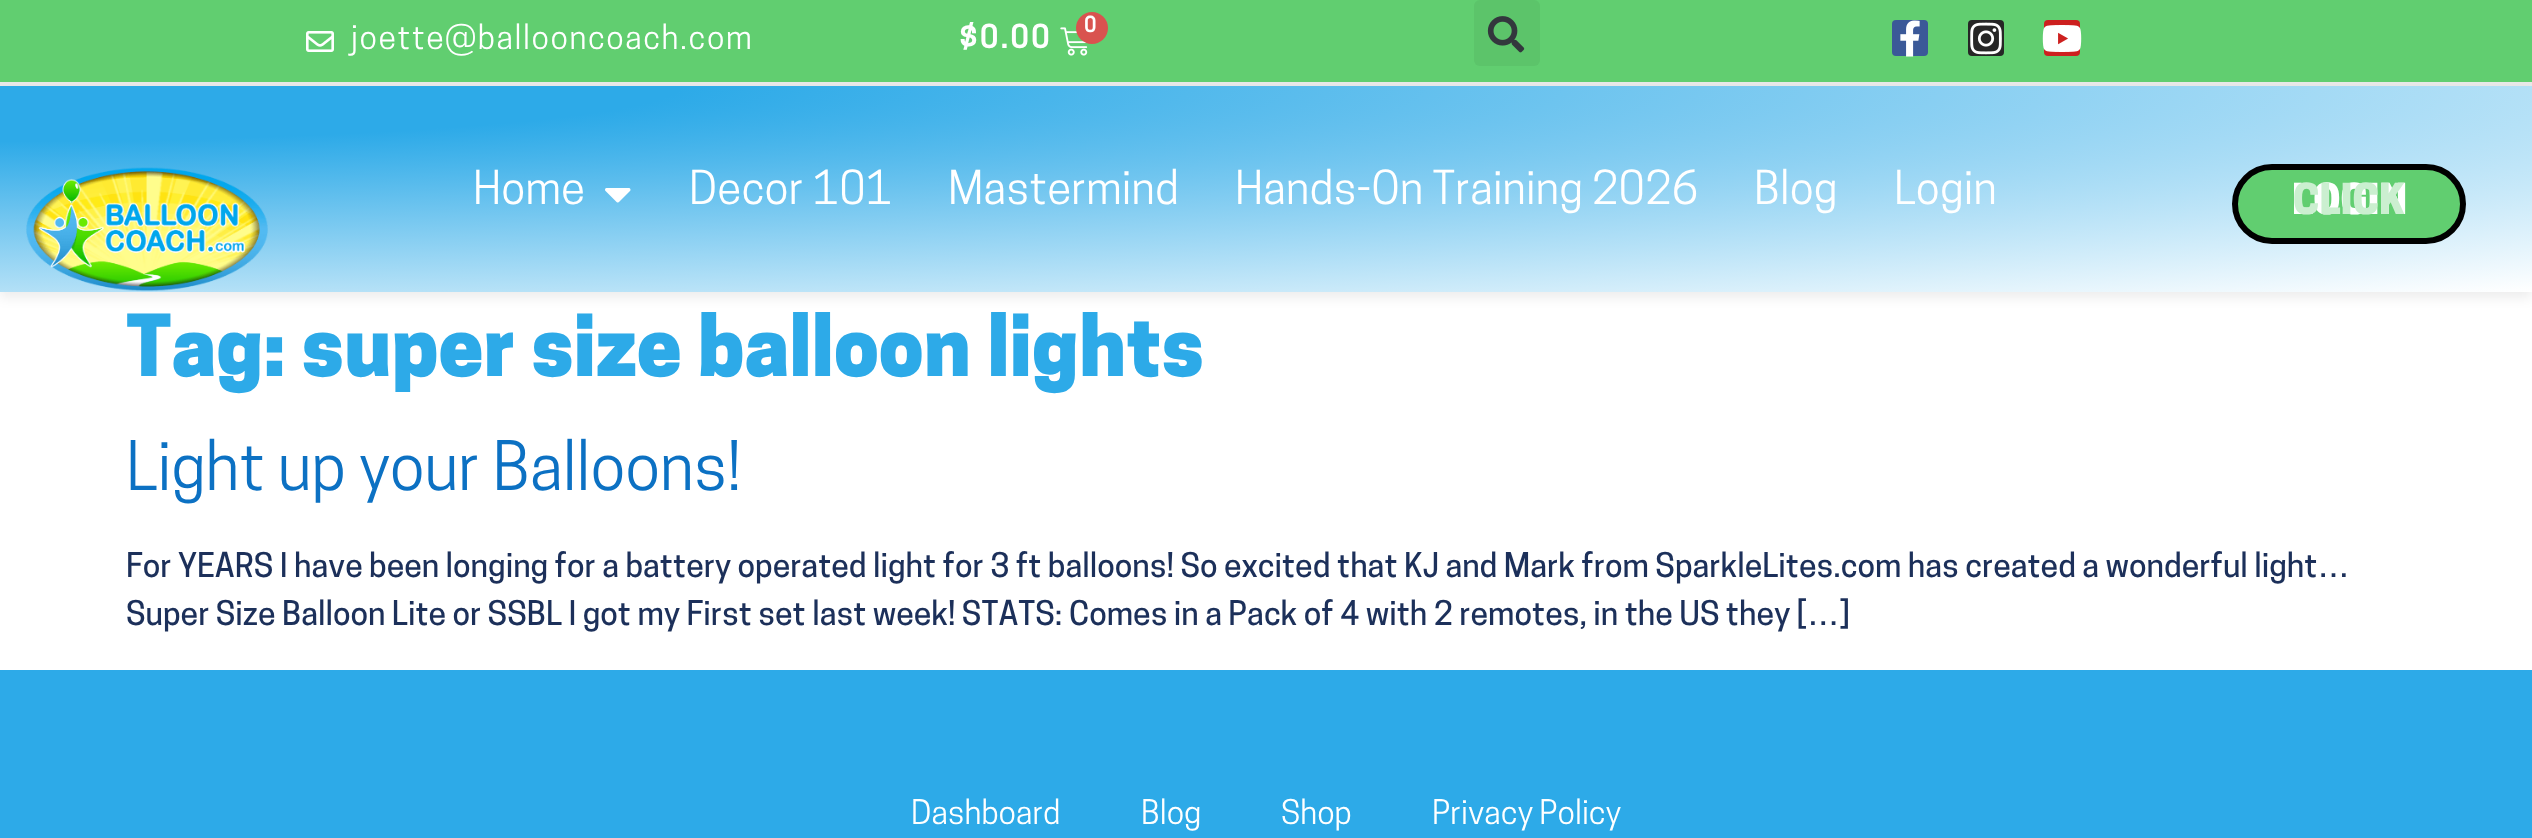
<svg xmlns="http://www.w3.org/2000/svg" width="2532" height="838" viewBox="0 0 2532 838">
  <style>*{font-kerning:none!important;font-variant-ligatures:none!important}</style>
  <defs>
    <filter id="blur1" x="-50%" y="-200%" width="200%" height="500%"><feGaussianBlur stdDeviation="6"/></filter>
    <radialGradient id="g1" gradientUnits="userSpaceOnUse" cx="0" cy="0" r="1" gradientTransform="matrix(3581 0 0 291 0 86)"><stop offset="0.19" stop-color="#2daae8"/><stop offset="1" stop-color="#ffffff"/></radialGradient>
  </defs>
  <rect width="100%" height="100%" fill="#ffffff"/>
  <rect x="0" y="0" width="2532" height="82" fill="#61ce70"/>
  <rect x="0" y="82" width="2532" height="4" fill="#e9e9e9"/>
  <image x="306" y="31" width="28" height="21" href="img1.png"/>
  <text x="351" y="49" font-family="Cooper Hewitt" font-size="32" letter-spacing="1.6" fill="#ffffff">joette@ballooncoach.com</text>
  <text x="959" y="48" font-family="Cooper Hewitt" font-size="30" font-weight="bold" letter-spacing="2.75" fill="#ffffff">$0.00</text>
  <image x="1060" y="27" width="28" height="29" href="img2.png"/>
  <circle cx="1092" cy="28" r="16" fill="#d9534f"/>
  <text x="1084" y="32" font-family="Cooper Hewitt" font-size="20" font-weight="bold" letter-spacing="2.75" fill="#ffffff">0</text>
  <rect x="1474" y="0" width="66" height="66" rx="6" fill="#5cc46a"/>
  <image x="1487" y="16" width="38" height="37" href="img3.png"/>
  <rect x="1892" y="20" width="36" height="36" rx="4" fill="#3b5998"/>
  <image x="1900" y="20" width="20" height="37" href="img4.png"/>
  <rect x="1968" y="20" width="36" height="36" rx="4" fill="#262626"/>
  <image x="1970" y="22" width="32" height="33" href="img5.png"/>
  <rect x="2044" y="20" width="36" height="36" rx="4" fill="#cd201f"/>
  <image x="2042" y="25" width="40" height="27" href="img6.png"/>
  <rect x="0" y="92" width="2532" height="206" fill="#000000" fill-opacity="0.07" filter="url(#blur1)"/>
  <rect x="0" y="86" width="2532" height="206" fill="url(#g1)"/>
  <image x="26" y="167" width="242" height="125" href="img7.png"/>
  <text x="473" y="204" font-family="Cooper Hewitt" font-size="44" letter-spacing="0.2" fill="#ffffff">Home</text>
  <image x="605" y="188" width="26" height="15" href="img8.png"/>
  <text x="689" y="204" font-family="Cooper Hewitt" font-size="44" letter-spacing="0.2" fill="#ffffff">Decor 101</text>
  <text x="948" y="204" font-family="Cooper Hewitt" font-size="44" letter-spacing="0.2" fill="#ffffff">Mastermind</text>
  <text x="1235" y="204" font-family="Cooper Hewitt" font-size="44" letter-spacing="0.2" fill="#ffffff">Hands-On Training 2026</text>
  <text x="1754" y="204" font-family="Cooper Hewitt" font-size="44" letter-spacing="0.2" fill="#ffffff">Blog</text>
  <text x="1894" y="204" font-family="Cooper Hewitt" font-size="44" letter-spacing="0.2" fill="#ffffff">Login</text>
  <rect x="2235" y="167" width="228" height="74" rx="37" fill="#61ce70" stroke="#000000" stroke-width="6"/>
  <text x="2292" y="214" font-family="Cooper Hewitt" font-size="40" font-weight="900" fill="#ffffff">LOGIN</text>
  <text x="2293" y="214" font-family="Cooper Hewitt" font-size="40" font-weight="900" fill="#cbefd0">CLICK</text>
  <text x="126" y="376" font-family="Cooper Hewitt" font-size="80" font-weight="900" fill="#2daae8">Tag: super size balloon lights</text>
  <text x="126" y="490" font-family="Cooper Hewitt" font-size="64" fill="#0c71c3">Light up your Balloons!</text>
  <text x="126" y="577" font-family="Cooper Hewitt" font-size="32" font-weight="500" fill="#1c305a">For YEARS I have been longing for a battery operated light for 3 ft balloons! So excited</text>
  <text x="1337" y="577" font-family="Cooper Hewitt" font-size="32" font-weight="500" fill="#1c305a">that KJ and Mark from SparkleLites.com has created a wonderful light…</text>
  <text x="126" y="625" font-family="Cooper Hewitt" font-size="32" font-weight="500" fill="#1c305a">Super Size Balloon Lite or SSBL I got my First set last week! STATS:</text>
  <text x="1069" y="625" font-family="Cooper Hewitt" font-size="32" font-weight="500" fill="#1c305a">Comes in a Pack of 4 with 2 remotes, in the US they […]</text>
  <rect x="0" y="670" width="2532" height="168" fill="#2daae8"/>
  <text x="911" y="824" font-family="Cooper Hewitt" font-size="32" fill="#ffffff">Dashboard</text>
  <text x="1141" y="824" font-family="Cooper Hewitt" font-size="32" fill="#ffffff">Blog</text>
  <text x="1281" y="824" font-family="Cooper Hewitt" font-size="32" fill="#ffffff">Shop</text>
  <text x="1432" y="824" font-family="Cooper Hewitt" font-size="32" fill="#ffffff">Privacy Policy</text>
</svg>
